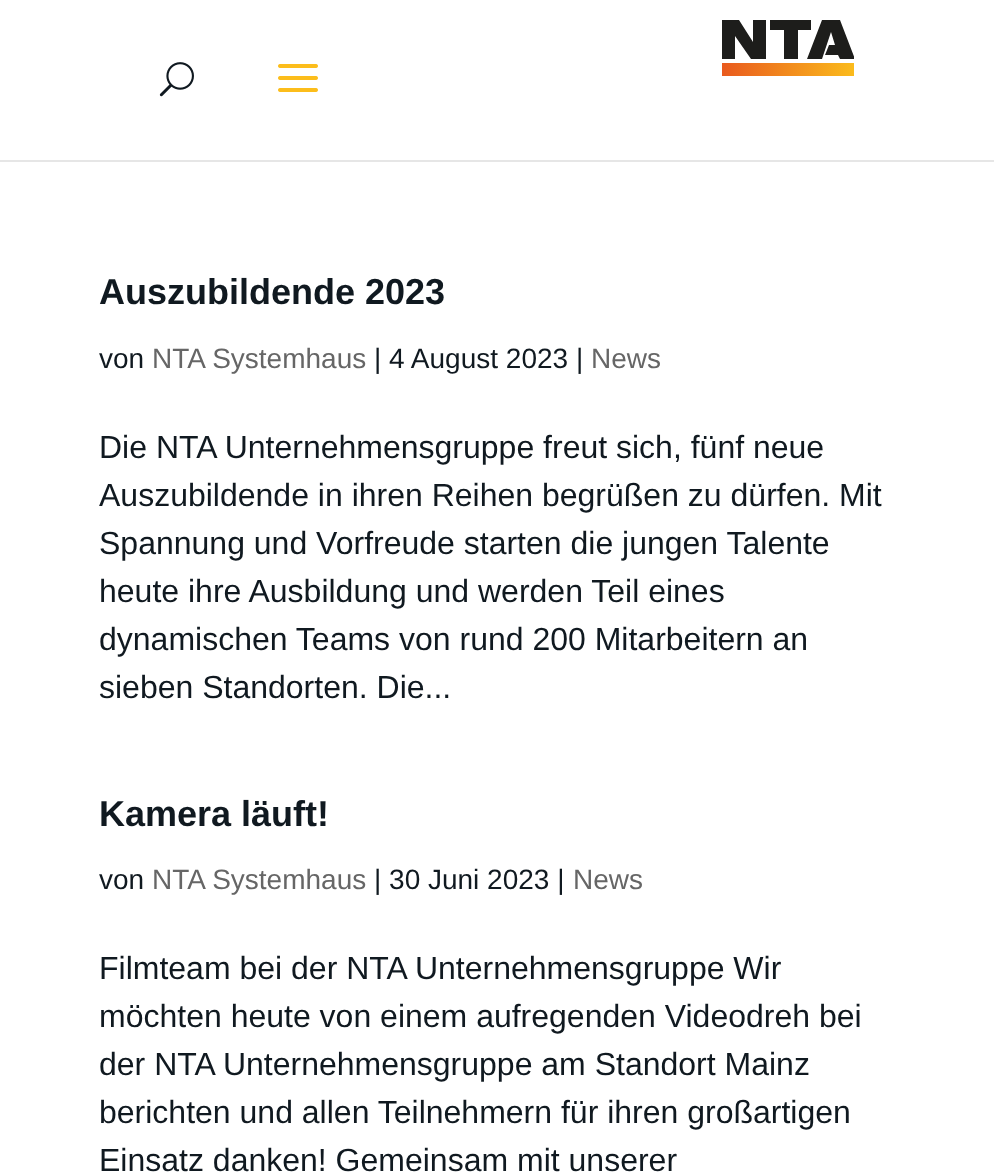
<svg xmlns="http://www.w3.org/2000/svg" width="994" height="1175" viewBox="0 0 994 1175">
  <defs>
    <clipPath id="clip1"><rect x="722" y="20" width="132" height="56"/></clipPath>
    <linearGradient id="g1" gradientUnits="userSpaceOnUse" x1="722" y1="70" x2="855" y2="70"><stop offset="0" stop-color="#e95a1e"/><stop offset="1" stop-color="#fbbc1c"/></linearGradient>
  </defs>
  <rect width="100%" height="100%" fill="#ffffff"/>
  <rect x="0" y="160" width="994" height="2" fill="#e6e6e6"/>
  <path d="M735 36V59H722V20H739L753 42V20H766V59H751Z" fill="#1d1d1b"/>
  <g clip-path="url(#clip1)">
    <path d="M831 32L822 59H807L822 20H840L855 59H840L838 55H825L829 45H835Z" fill="#1d1d1b"/>
  </g>
  <path d="M811 20V30H798V59H784V30H770V20Z" fill="#1d1d1b"/>
  <rect x="722" y="63" width="132" height="13" fill="url(#g1)"/>
  <image x="159" y="62" width="35" height="35" href="img1.png"/>
  <image x="278" y="64" width="40" height="28" href="img2.png"/>
  <text x="99" y="304" font-family="Liberation Sans" font-size="36" font-weight="bold" fill="#101920">Auszubildende 2023</text>
  <text x="99" y="368" font-family="Liberation Sans" font-size="28" fill="#101920">von</text>
  <text x="152" y="368" font-family="Liberation Sans" font-size="28" fill="#666666">NTA Systemhaus</text>
  <text x="374" y="368" font-family="Liberation Sans" font-size="28" fill="#101920">| 4 August 2023 |</text>
  <text x="591" y="368" font-family="Liberation Sans" font-size="28" fill="#666666">News</text>
  <text x="99" y="458" font-family="Liberation Sans" font-size="32" fill="#101920">Die NTA Unternehmensgruppe freut sich, fünf neue</text>
  <text x="99" y="506" font-family="Liberation Sans" font-size="32" fill="#101920">Auszubildende in ihren Reihen begrüßen zu dürfen. Mit</text>
  <text x="99" y="554" font-family="Liberation Sans" font-size="32" fill="#101920">Spannung und Vorfreude starten die jungen Talente</text>
  <text x="99" y="602" font-family="Liberation Sans" font-size="32" fill="#101920">heute ihre Ausbildung und werden Teil eines</text>
  <text x="99" y="650" font-family="Liberation Sans" font-size="32" fill="#101920">dynamischen Teams von rund 200 Mitarbeitern an</text>
  <text x="99" y="698" font-family="Liberation Sans" font-size="32" fill="#101920">sieben Standorten. Die...</text>
  <text x="99" y="826" font-family="Liberation Sans" font-size="36" font-weight="bold" fill="#101920">Kamera läuft!</text>
  <text x="99" y="889" font-family="Liberation Sans" font-size="28" fill="#101920">von</text>
  <text x="152" y="889" font-family="Liberation Sans" font-size="28" fill="#666666">NTA Systemhaus</text>
  <text x="374" y="889" font-family="Liberation Sans" font-size="28" fill="#101920">| 30 Juni 2023 |</text>
  <text x="573" y="889" font-family="Liberation Sans" font-size="28" fill="#666666">News</text>
  <text x="99" y="979" font-family="Liberation Sans" font-size="32" fill="#101920">Filmteam bei der NTA Unternehmensgruppe Wir</text>
  <text x="99" y="1027" font-family="Liberation Sans" font-size="32" fill="#101920">möchten heute von einem aufregenden Videodreh bei</text>
  <text x="99" y="1075" font-family="Liberation Sans" font-size="32" fill="#101920">der NTA Unternehmensgruppe am Standort Mainz</text>
  <text x="99" y="1123" font-family="Liberation Sans" font-size="32" fill="#101920">berichten und allen Teilnehmern für ihren großartigen</text>
  <text x="99" y="1171" font-family="Liberation Sans" font-size="32" fill="#101920">Einsatz danken! Gemeinsam mit unserer</text>
</svg>
